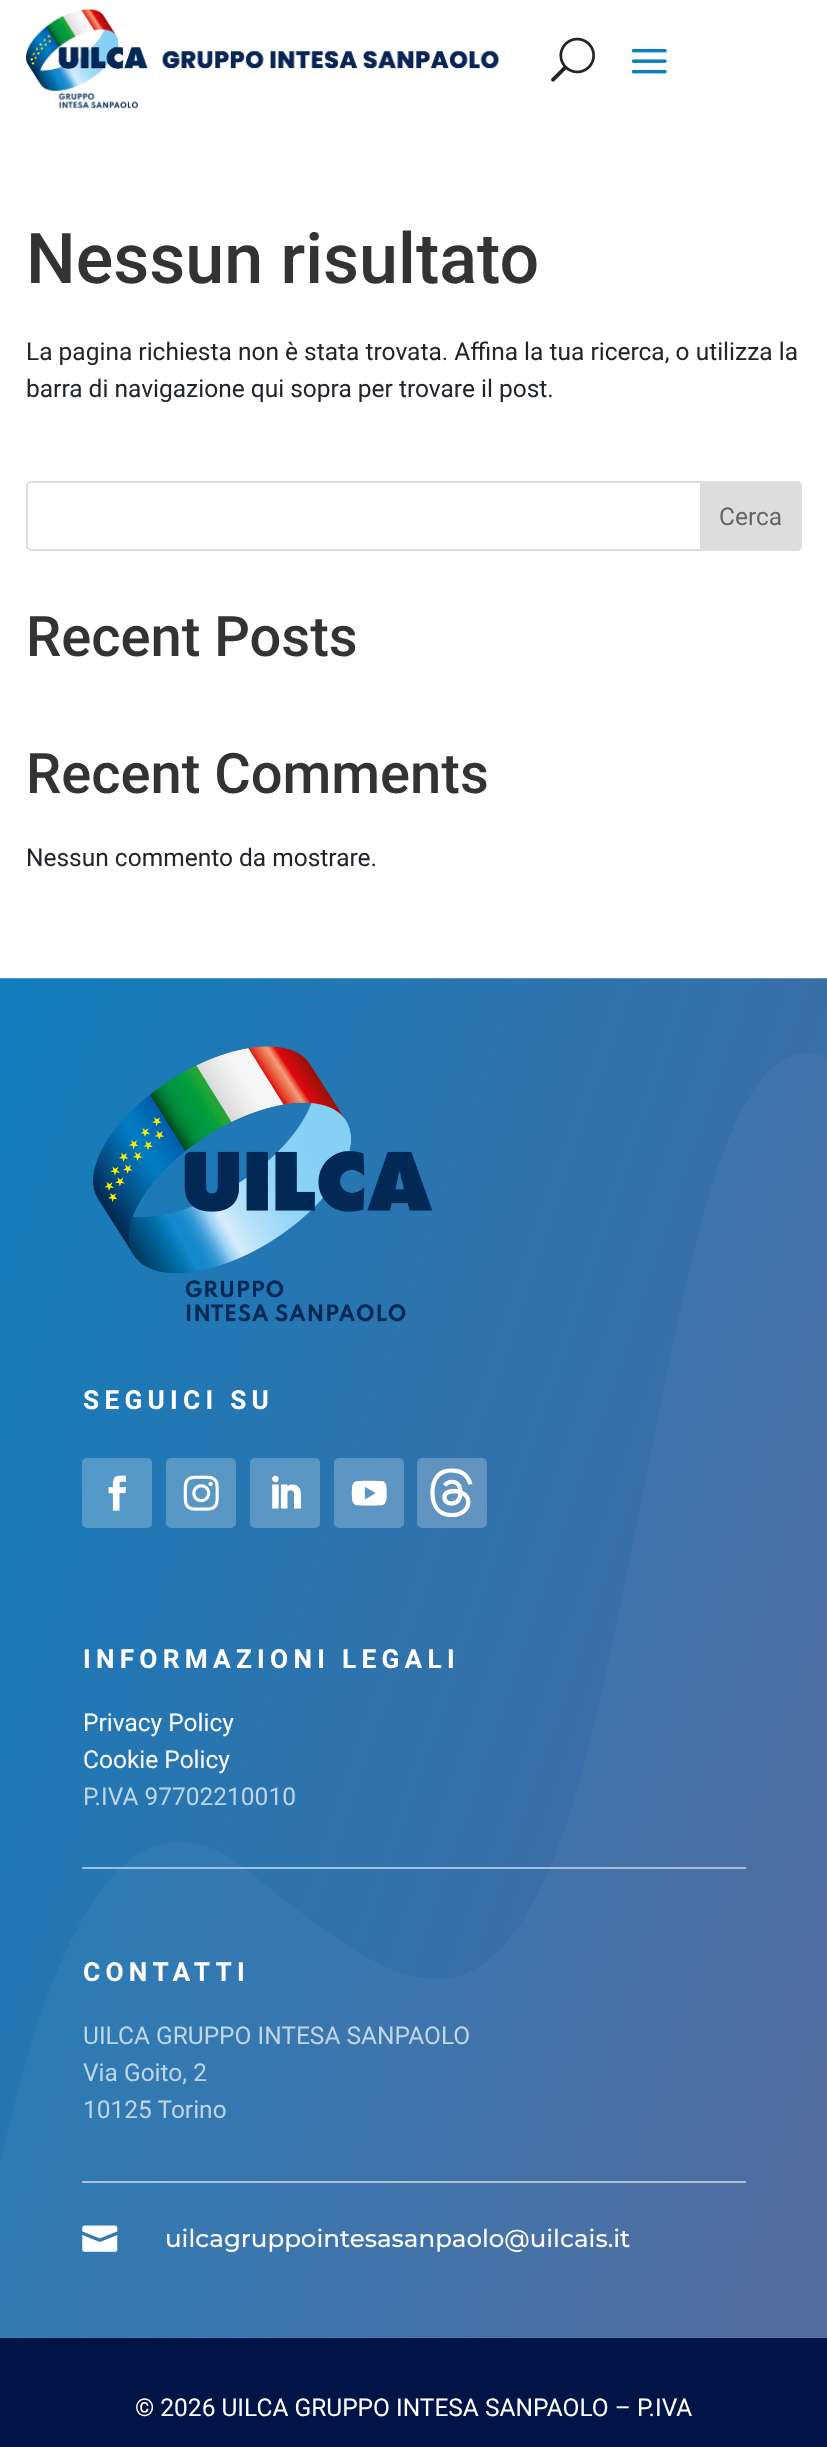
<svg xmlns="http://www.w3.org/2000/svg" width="827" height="2447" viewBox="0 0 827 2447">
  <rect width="100%" height="100%" fill="#ffffff"/>
  <image x="26" y="8" width="473" height="101" href="img1.png"/>
  <image x="551" y="37" width="44" height="45" href="img2.png"/>
  <image x="631" y="48" width="36" height="26" href="img3.png"/>
  <text x="26" y="283" font-family="Roboto" font-size="70" font-weight="500" fill="#333333">Nessun risultato</text>
  <text x="26" y="360" font-family="Roboto" font-size="24.5" fill="#212529">La pagina richiesta non è stata trovata. Affina la tua ricerca, o utilizza la</text>
  <text x="26" y="397" font-family="Roboto" font-size="24.5" fill="#212529">barra di navigazione qui sopra per trovare il post.</text>
  <rect x="27" y="482" width="774" height="68" rx="4" fill="none" stroke="#dddddd" stroke-width="2"/>
  <path d="M701 482H797C799 482 801 484 801 486V546C801 548 799 550 797 550H701Z" fill="#dddddd" stroke="#dddddd" stroke-width="2"/>
  <text x="719" y="525" font-family="Roboto" font-size="24.5" fill="#666666">Cerca</text>
  <text x="26" y="656" font-family="Roboto" font-size="56" font-weight="500" fill="#333333">Recent Posts</text>
  <text x="26" y="793" font-family="Roboto" font-size="56" font-weight="500" fill="#333333">Recent Comments</text>
  <text x="26" y="866" font-family="Roboto" font-size="24.5" fill="#212529">Nessun commento da mostrare.</text>
  <image x="0" y="978" width="827" height="1360" href="img4.png"/>
  <image x="93" y="1046" width="340" height="276" href="img5.png"/>
  <text x="83" y="1409" font-family="Heebo" font-size="26.25" font-weight="bold" letter-spacing="5.25" fill="#ffffff">SEGUICI SU</text>
  <rect x="82" y="1458" width="70" height="70" rx="5" fill="#ffffff" fill-opacity="0.24"/>
  <image x="108" y="1475" width="19" height="36" href="img6.png"/>
  <rect x="166" y="1458" width="70" height="70" rx="5" fill="#ffffff" fill-opacity="0.24"/>
  <image x="183" y="1475" width="36" height="36" href="img7.png"/>
  <rect x="250" y="1458" width="70" height="70" rx="5" fill="#ffffff" fill-opacity="0.24"/>
  <image x="272" y="1475" width="29" height="34" href="img8.png"/>
  <rect x="334" y="1458" width="70" height="70" rx="5" fill="#ffffff" fill-opacity="0.24"/>
  <image x="351" y="1480" width="36" height="26" href="img9.png"/>
  <rect x="417" y="1458" width="70" height="70" rx="5" fill="#ffffff" fill-opacity="0.24"/>
  <image x="430" y="1468" width="43" height="49" href="img10.png"/>
  <text x="83" y="1668" font-family="Heebo" font-size="26.25" font-weight="bold" letter-spacing="5.25" fill="#ffffff">INFORMAZIONI LEGALI</text>
  <text x="83" y="1731" font-family="Roboto" font-size="24.5" fill="#ffffff">Privacy Policy</text>
  <text x="83" y="1768" font-family="Roboto" font-size="24.5" fill="#ffffff">Cookie Policy</text>
  <text x="83" y="1805" font-family="Roboto" font-size="24.5" fill="#bfd6e7">P.IVA 97702210010</text>
  <rect x="82" y="1867" width="664" height="2" fill="#ffffff" fill-opacity="0.54"/>
  <text x="83" y="1981" font-family="Heebo" font-size="26.25" font-weight="bold" letter-spacing="5.25" fill="#ffffff">CONTATTI</text>
  <text x="83" y="2044" font-family="Roboto" font-size="24.5" fill="#bfd6e7">UILCA GRUPPO INTESA SANPAOLO</text>
  <text x="83" y="2081" font-family="Roboto" font-size="24.5" fill="#bfd6e7">Via Goito, 2</text>
  <text x="83" y="2118" font-family="Roboto" font-size="24.5" fill="#bfd6e7">10125 Torino</text>
  <rect x="82" y="2181" width="664" height="2" fill="#ffffff" fill-opacity="0.54"/>
  <image x="82" y="2225" width="36" height="27" href="img11.png"/>
  <text x="165" y="2247" font-family="Montserrat" font-size="24.5" font-weight="500" fill="#ffffff">uilcagruppointesasanpaolo@uilcais.it</text>
  <rect x="0" y="2338" width="827" height="109" fill="#001447"/>
  <text x="135" y="2416" font-family="Roboto" font-size="24.5" fill="#ffffff">© 2026 UILCA GRUPPO INTESA SANPAOLO – P.IVA</text>
</svg>
